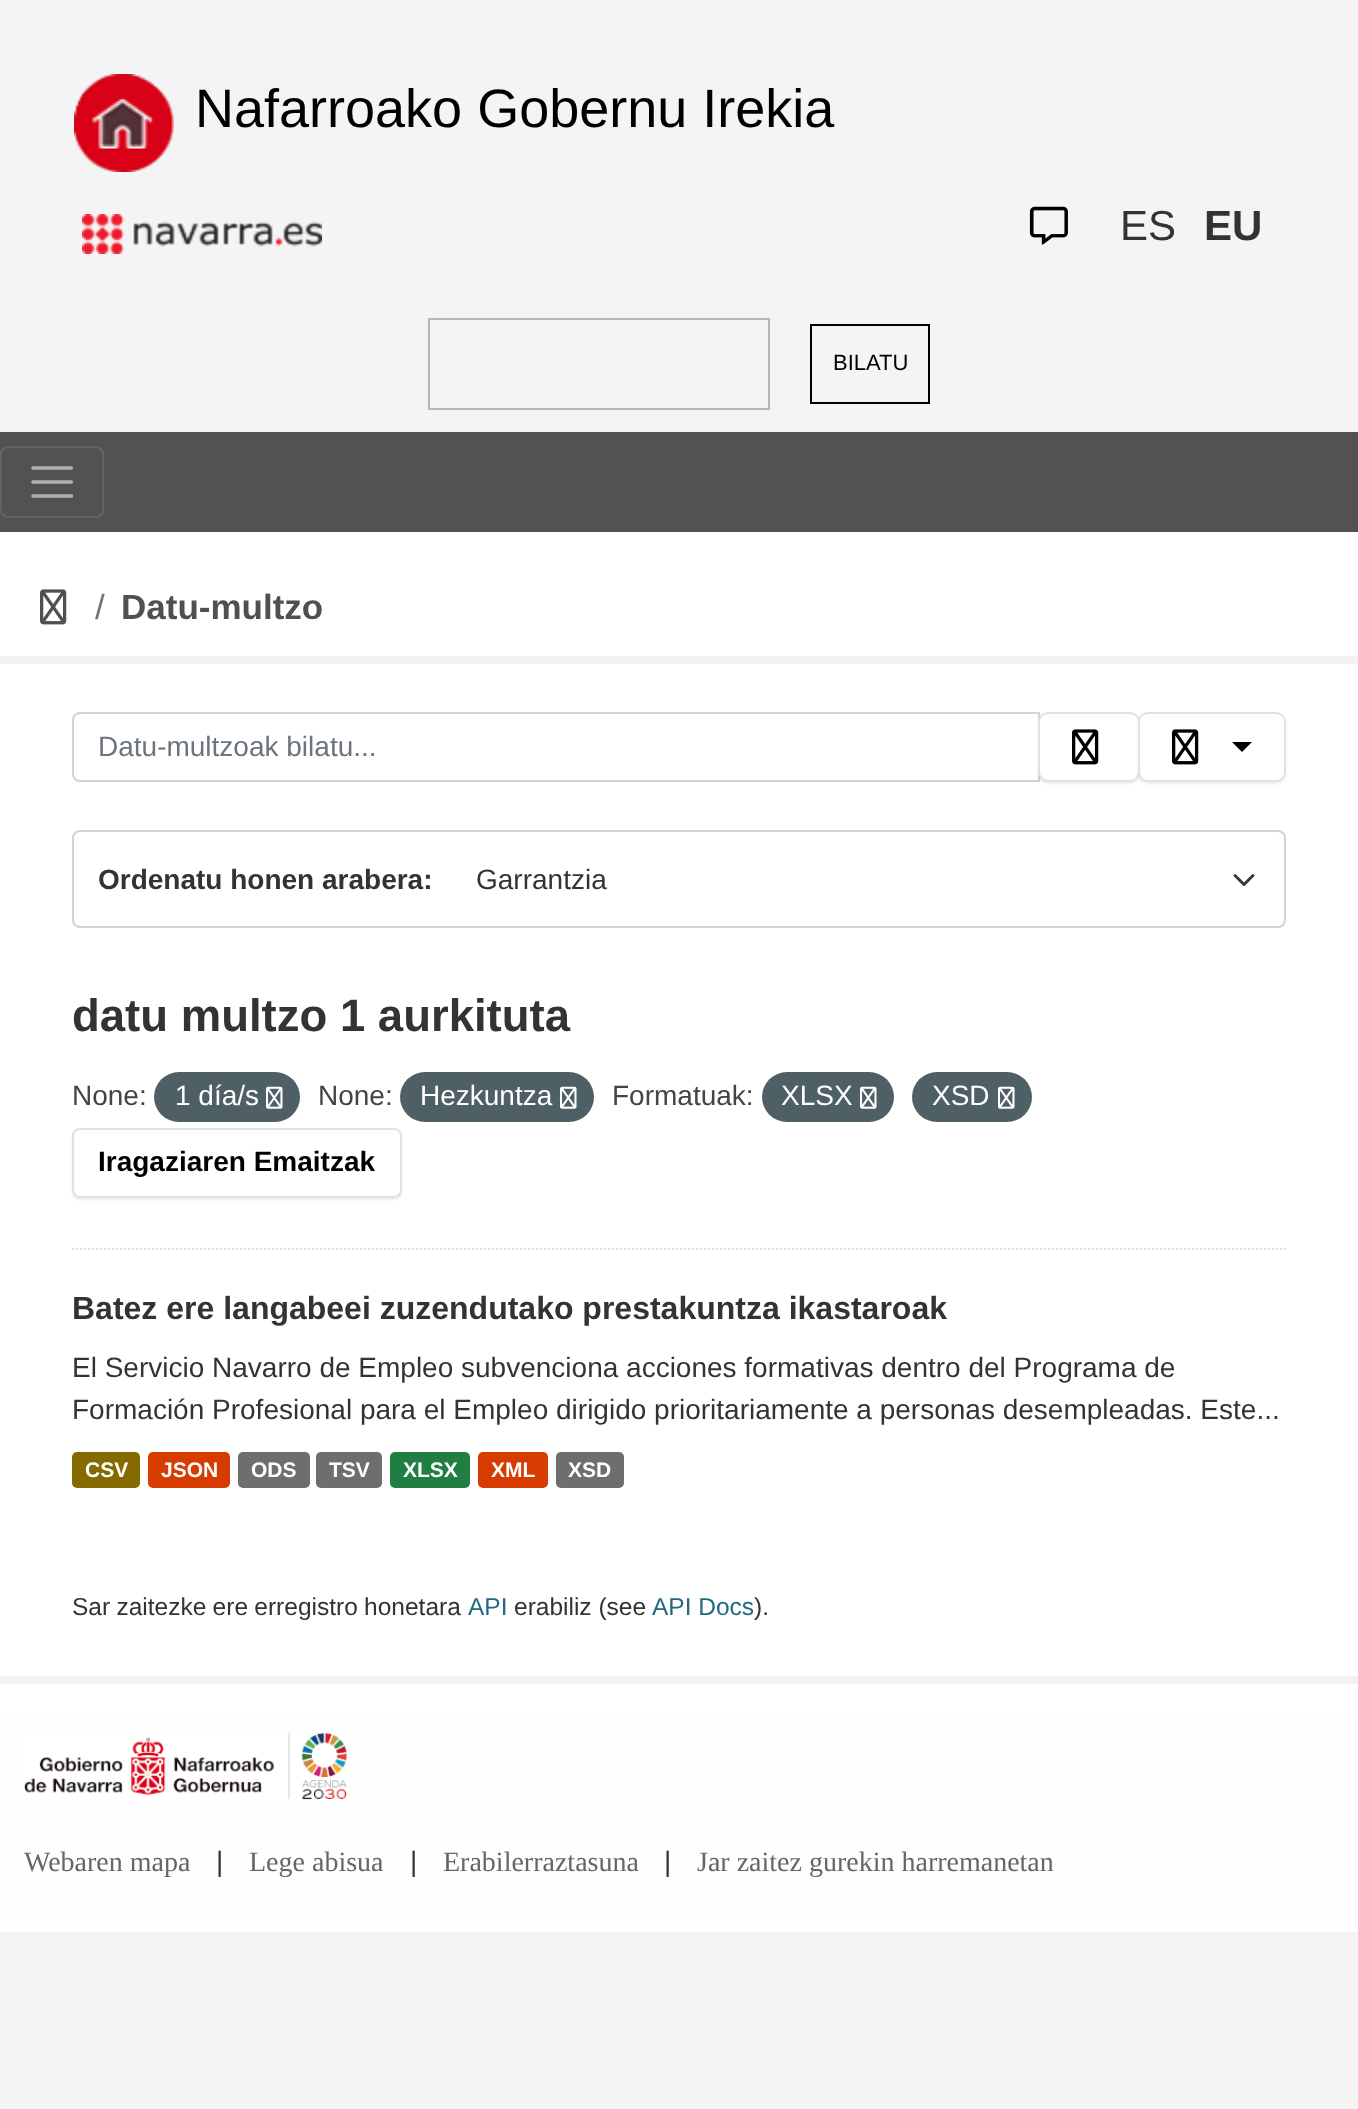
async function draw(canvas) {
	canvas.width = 1358;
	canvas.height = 2109;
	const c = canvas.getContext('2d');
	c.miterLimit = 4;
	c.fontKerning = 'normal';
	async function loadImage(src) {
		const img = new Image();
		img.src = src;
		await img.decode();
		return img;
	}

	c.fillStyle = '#f4f4f4';
	c.fillRect(0, 0, 1358, 2109);
	c.drawImage(await loadImage('img1.png'), 74, 74, 100, 98);
	c.font = '54px Liberation Sans';
	c.fillStyle = '#000';
	c.fillText('Nafarroako Gobernu Irekia', 195, 127);
	c.drawImage(await loadImage('img2.png'), 82, 214, 240, 40);
	c.drawImage(await loadImage('img3.png'), 1029, 206, 39, 39);
	c.font = '42px Liberation Sans';
	c.fillStyle = '#333';
	c.fillText('ES', 1120, 240);
	c.font = 'bold 42px Liberation Sans';
	c.fillText('EU', 1204, 240);
	c.strokeStyle = '#b6b6b6';
	c.lineWidth = 2;
	c.strokeRect(429, 319, 340, 90);
	c.strokeStyle = '#000';
	c.strokeRect(811, 325, 118, 78);
	c.font = '22px Liberation Sans';
	c.fillStyle = '#000';
	c.fillText('BILATU', 833, 370);
	c.fillStyle = '#525252';
	c.fillRect(0, 432, 1358, 100);
	c.beginPath();
	c.roundRect(1, 447, 102, 70, 7);
	c.strokeStyle = '#636363';
	c.stroke();
	c.beginPath();
	c.moveTo(33, 468);
	c.lineTo(71.5, 468);
	c.moveTo(33, 482);
	c.lineTo(71.5, 482);
	c.moveTo(33, 496);
	c.lineTo(71.5, 496);
	c.strokeStyle = '#b1b1b1';
	c.lineWidth = 3.5;
	c.lineCap = 'round';
	c.stroke();
	c.fillStyle = '#fff';
	c.fillRect(0, 532, 1358, 1184);
	c.drawImage(await loadImage('img4.png'), 40, 589, 27, 36);
	c.font = '35px Liberation Sans';
	c.fillStyle = '#6c757d';
	c.fillText('/', 95, 619);
	c.font = 'bold 35px Liberation Sans';
	c.fillStyle = '#505050';
	c.fillText('Datu-multzo', 121, 619);
	c.strokeStyle = '#f2f2f2';
	c.lineWidth = 8;
	c.strokeRect(-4, 660, 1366, 1020);
	c.beginPath();
	c.moveTo(72, 1249);
	c.lineTo(1286, 1249);
	c.strokeStyle = '#ddd';
	c.lineWidth = 2;
	c.lineCap = 'butt';
	c.setLineDash([2, 2]);
	c.stroke();
	c.beginPath();
	c.roundRect(73, 713, 966, 68, [7, 0, 0, 7]);
	c.strokeStyle = '#ced4da';
	c.setLineDash([]);
	c.stroke();
	c.font = '28px Liberation Sans';
	c.fillStyle = '#6c757d';
	c.fillText('Datu-multzoak bilatu...', 98, 756);
	c.fillStyle = '#00000012';
	c.filter = 'blur(1px)';
	c.beginPath();
	c.roundRect(1038, 714, 102, 70, 10);
	c.fill();
	c.filter = 'none';
	c.fillStyle = '#fff';
	c.beginPath();
	c.roundRect(1039, 713, 100, 68, 9);
	c.fill();
	c.strokeStyle = '#dee2e6';
	c.stroke();
	c.drawImage(await loadImage('img5.png'), 1072, 729, 27, 36);
	c.fillStyle = '#00000012';
	c.filter = 'blur(1px)';
	c.beginPath();
	c.roundRect(1138, 714, 148, 70, 10);
	c.fill();
	c.filter = 'none';
	c.fillStyle = '#fff';
	c.beginPath();
	c.roundRect(1139, 713, 146, 68, 9);
	c.fill();
	c.stroke();
	c.drawImage(await loadImage('img5.png'), 1172, 729, 27, 36);
	c.fillStyle = '#000';
	c.beginPath();
	c.moveTo(1232, 742);
	c.lineTo(1252, 742);
	c.lineTo(1242, 752);
	c.closePath();
	c.fill();
	c.beginPath();
	c.moveTo(1235, 875.5);
	c.lineTo(1244, 884.5);
	c.lineTo(1253, 875.5);
	c.strokeStyle = '#343a40';
	c.lineWidth = 3;
	c.lineCap = 'round';
	c.lineJoin = 'round';
	c.stroke();
	c.beginPath();
	c.roundRect(73, 831, 1212, 96, 7);
	c.strokeStyle = '#ced4da';
	c.lineWidth = 2;
	c.lineJoin = 'miter';
	c.stroke();
	c.font = 'bold 28px Liberation Sans';
	c.fillStyle = '#333';
	c.fillText('Ordenatu honen arabera:', 98, 889);
	c.font = '28px Liberation Sans';
	c.fillText('Garrantzia', 476, 889);
	c.font = 'bold 45.5px Liberation Sans';
	c.fillText('datu multzo 1 aurkituta', 72, 1031);
	c.font = '28px Liberation Sans';
	c.fillStyle = '#444';
	c.fillText('None:', 72, 1105);
	c.fillStyle = '#4e5f65';
	c.beginPath();
	c.roundRect(154, 1072, 146, 50, 25);
	c.fill();
	c.fillStyle = '#fff';
	c.fillText('1 día/s', 175, 1105);
	c.drawImage(await loadImage('img6.png'), 266, 1086, 17, 23);
	c.fillStyle = '#444';
	c.fillText('None:', 318, 1105);
	c.fillStyle = '#4e5f65';
	c.beginPath();
	c.roundRect(400, 1072, 194, 50, 25);
	c.fill();
	c.fillStyle = '#fff';
	c.fillText('Hezkuntza', 420, 1105);
	c.drawImage(await loadImage('img6.png'), 560, 1086, 17, 23);
	c.fillStyle = '#444';
	c.fillText('Formatuak:', 612, 1105);
	c.fillStyle = '#4e5f65';
	c.beginPath();
	c.roundRect(762, 1072, 132, 50, 25);
	c.fill();
	c.fillStyle = '#fff';
	c.fillText('XLSX', 781, 1105);
	c.drawImage(await loadImage('img6.png'), 860, 1086, 17, 23);
	c.fillStyle = '#4e5f65';
	c.beginPath();
	c.roundRect(912, 1072, 120, 50, 25);
	c.fill();
	c.fillStyle = '#fff';
	c.fillText('XSD', 932, 1105);
	c.drawImage(await loadImage('img6.png'), 998, 1086, 17, 23);
	c.fillStyle = '#00000012';
	c.filter = 'blur(1px)';
	c.beginPath();
	c.roundRect(72, 1130, 330, 70, 8);
	c.fill();
	c.filter = 'none';
	c.fillStyle = '#fff';
	c.beginPath();
	c.roundRect(73, 1129, 328, 68, 7);
	c.fill();
	c.strokeStyle = '#dee2e6';
	c.stroke();
	c.font = 'bold 28px Liberation Sans';
	c.fillStyle = '#000';
	c.fillText('Iragaziaren Emaitzak', 98, 1171);
	c.font = 'bold 32px Liberation Sans';
	c.fillStyle = '#333';
	c.fillText('Batez ere langabeei zuzendutako prestakuntza ikastaroak', 72, 1319);
	c.font = '28px Liberation Sans';
	c.fillText('El Servicio Navarro de Empleo subvenciona acciones formativas dentro del Programa de', 72, 1377);
	c.fillText('Formación Profesional para el Empleo dirigido prioritariamente a personas desempleadas. Este...', 72, 1419);
	c.fillStyle = '#856a00';
	c.beginPath();
	c.roundRect(72, 1452, 68, 36, 5);
	c.fill();
	c.font = 'bold 21px Liberation Sans';
	c.fillStyle = '#fff';
	c.fillText('CSV', 85, 1477);
	c.fillStyle = '#d63b00';
	c.beginPath();
	c.roundRect(148, 1452, 82, 36, 5);
	c.fill();
	c.fillStyle = '#fff';
	c.fillText('JSON', 161, 1477);
	c.fillStyle = '#6e6e6e';
	c.beginPath();
	c.roundRect(238, 1452, 72, 36, 5);
	c.fill();
	c.fillStyle = '#fff';
	c.fillText('ODS', 251, 1477);
	c.fillStyle = '#6e6e6e';
	c.beginPath();
	c.roundRect(316, 1452, 66, 36, 5);
	c.fill();
	c.fillStyle = '#fff';
	c.fillText('TSV', 329, 1477);
	c.fillStyle = '#207e42';
	c.beginPath();
	c.roundRect(390, 1452, 80, 36, 5);
	c.fill();
	c.fillStyle = '#fff';
	c.fillText('XLSX', 403, 1477);
	c.fillStyle = '#d63b00';
	c.beginPath();
	c.roundRect(478, 1452, 70, 36, 5);
	c.fill();
	c.fillStyle = '#fff';
	c.fillText('XML', 491, 1477);
	c.fillStyle = '#6e6e6e';
	c.beginPath();
	c.roundRect(556, 1452, 68, 36, 5);
	c.fill();
	c.fillStyle = '#fff';
	c.fillText('XSD', 568, 1477);
	c.wordSpacing = '-0.5px';
	c.font = '24.5px Liberation Sans';
	c.fillStyle = '#333';
	c.fillText('Sar zaitezke ere erregistro honetara', 72, 1615);
	c.wordSpacing = '0px';
	c.fillStyle = '#206b82';
	c.fillText('API', 468, 1615);
	c.fillStyle = '#333';
	c.fillText('erabiliz (see', 514, 1615);
	c.fillStyle = '#206b82';
	c.fillText('API Docs', 652, 1615);
	c.fillStyle = '#333';
	c.fillText(').', 754, 1615);
	c.fillStyle = '#fefefe';
	c.fillRect(0, 1716, 1358, 216);
	c.drawImage(await loadImage('img7.png'), 24, 1732, 323, 68);
	c.font = '28px Liberation Serif';
	c.fillStyle = '#666';
	c.fillText('Webaren mapa', 24, 1871);
	c.font = '28px Liberation Sans';
	c.fillStyle = '#333';
	c.fillText('|', 216, 1871);
	c.font = '28px Liberation Serif';
	c.fillStyle = '#666';
	c.fillText('Lege abisua', 249, 1871);
	c.font = '28px Liberation Sans';
	c.fillStyle = '#333';
	c.fillText('|', 410, 1871);
	c.font = '28px Liberation Serif';
	c.fillStyle = '#666';
	c.fillText('Erabilerraztasuna', 443, 1871);
	c.font = '28px Liberation Sans';
	c.fillStyle = '#333';
	c.fillText('|', 664, 1871);
	c.font = '28px Liberation Serif';
	c.fillStyle = '#666';
	c.fillText('Jar zaitez gurekin harremanetan', 697, 1871);
}

draw(document.querySelector('canvas'));
